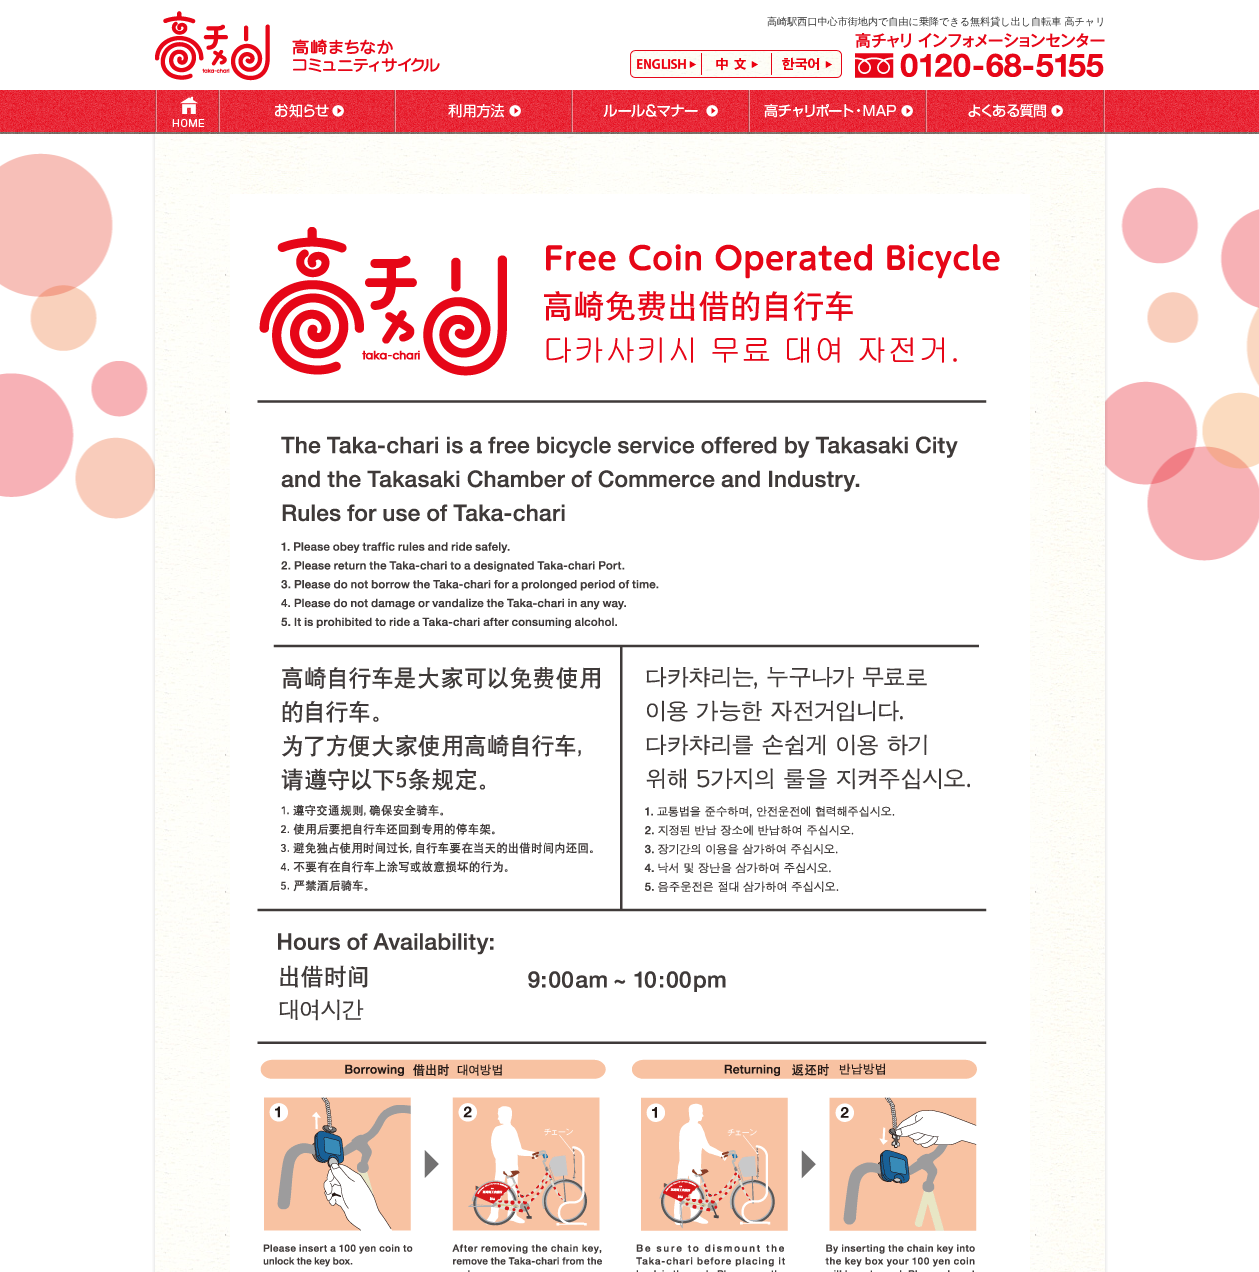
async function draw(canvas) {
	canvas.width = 1259;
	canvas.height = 1272;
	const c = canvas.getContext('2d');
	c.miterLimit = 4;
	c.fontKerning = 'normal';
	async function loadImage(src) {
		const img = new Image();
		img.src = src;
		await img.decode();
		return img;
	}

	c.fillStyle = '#fff';
	c.fillRect(0, 0, 1259, 1272);
	c.drawImage(await loadImage('img1.png'), 155, 11, 285, 70);
	c.font = '500 10.1px WenQuanYi Zen Hei';
	c.fillStyle = '#333';
	c.fillText('高崎駅西口中心市街地内で自由に乗降できる無料貸し出し自転車 高チャリ', 767, 25);
	c.drawImage(await loadImage('img2.png'), 630, 50, 71, 28);
	c.drawImage(await loadImage('img3.png'), 701, 50, 70, 28);
	c.drawImage(await loadImage('img4.png'), 771, 50, 71, 28);
	c.drawImage(await loadImage('img5.png'), 855, 33, 250, 45);
	c.drawImage(await loadImage('img6.png'), 0, 90, 1259, 44);
	c.drawImage(await loadImage('img7.png'), 155, 90, 65, 44);
	c.drawImage(await loadImage('img8.png'), 220, 90, 176, 44);
	c.drawImage(await loadImage('img9.png'), 396, 90, 177, 44);
	c.drawImage(await loadImage('img10.png'), 573, 90, 177, 44);
	c.drawImage(await loadImage('img11.png'), 750, 90, 177, 44);
	c.drawImage(await loadImage('img12.png'), 927, 90, 178, 44);
	c.drawImage(await loadImage('img13.png'), 0, 153, 1259, 408);
	c.drawImage(await loadImage('img14.png'), 152, 134, 956, 1138);
	c.drawImage(await loadImage('img15.png'), 230, 194, 800, 453);
	c.drawImage(await loadImage('img16.png'), 230, 647, 392, 264);
	c.drawImage(await loadImage('img17.png'), 622, 647, 408, 264);
	c.drawImage(await loadImage('img18.png'), 230, 911, 800, 361);
}

draw(document.querySelector('canvas'));
